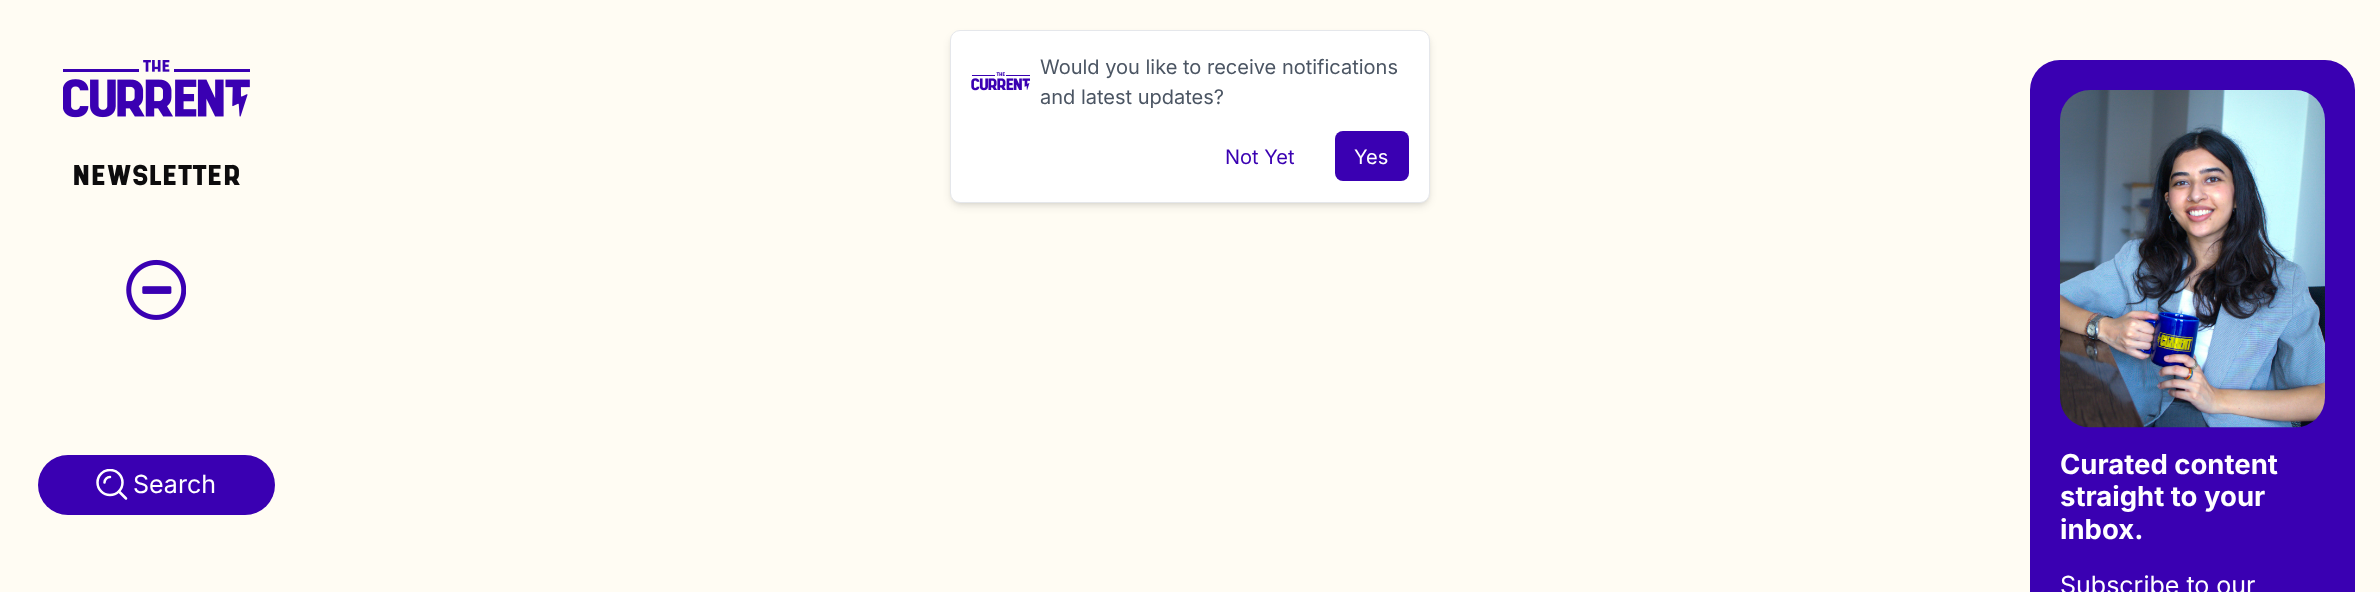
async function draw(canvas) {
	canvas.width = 2380;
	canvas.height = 592;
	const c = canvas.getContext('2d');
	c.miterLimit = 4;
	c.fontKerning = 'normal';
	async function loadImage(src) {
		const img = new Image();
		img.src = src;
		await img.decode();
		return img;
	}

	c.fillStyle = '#fffcf3';
	c.fillRect(0, 0, 2380, 592);
	c.fillStyle = '#0000001a';
	c.filter = 'blur(2.5px)';
	c.beginPath();
	c.roundRect(953, 35, 475, 168, 8);
	c.fill();
	c.filter = 'none';
	c.filter = 'blur(4px)';
	c.beginPath();
	c.roundRect(951, 36, 478, 170, 9);
	c.fill();
	c.filter = 'none';
	c.fillStyle = '#fff';
	c.beginPath();
	c.roundRect(950.5, 30.5, 479, 172, 9.5);
	c.fill();
	c.strokeStyle = '#e5e7eb';
	c.stroke();
	c.drawImage(await loadImage('img1.png'), 971, 72, 59, 19);
	c.font = '20px Inter';
	c.fillStyle = '#4b5563';
	c.fillText('Would you like to receive notifications', 1040, 74);
	c.fillText('and latest updates?', 1040, 104);
	c.fillStyle = '#3a00b2';
	c.fillText('Not Yet', 1225, 164);
	c.beginPath();
	c.roundRect(1335, 131, 74, 50, 8);
	c.fill();
	c.fillStyle = '#fff';
	c.fillText('Yes', 1354, 164);
	c.drawImage(await loadImage('img2.png'), 63, 60, 187, 58);
	c.font = '27.5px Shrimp';
	c.fillStyle = '#0d0c0d';
	c.fillText('NEWSLETTER', 72, 185);
	c.drawImage(await loadImage('img3.png'), 126, 259, 60, 61);
	c.fillStyle = '#3a00b2';
	c.beginPath();
	c.roundRect(38, 455, 237, 60, 30);
	c.fill();
	c.save();
	c.beginPath();
	c.rect(96, 469, 32, 31);
	c.clip();
	c.beginPath();
	c.arc(110, 482.5, 12.5, 0, 2 * Math.PI);
	c.strokeStyle = '#fff';
	c.lineWidth = 2.5;
	c.stroke();
	c.restore();
	c.beginPath();
	c.moveTo(110, 477);
	c.bezierCurveTo(107, 477, 104.5, 479.5, 104.5, 482.5);
	c.moveTo(126, 498.5);
	c.lineTo(119, 491.5);
	c.strokeStyle = '#fff';
	c.lineWidth = 2.5;
	c.lineCap = 'round';
	c.stroke();
	c.font = '25px Inter';
	c.fillStyle = '#fff';
	c.fillText('Search', 133, 493);
	c.fillStyle = '#3a00b2';
	c.beginPath();
	c.roundRect(2030, 60, 325, 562, 30);
	c.fill();
	c.drawImage(await loadImage('img4.png'), 2060, 90, 265, 338);
	c.font = 'bold 27.5px Inter';
	c.fillStyle = '#fff';
	for (const [text, x, y] of [
		['Curated content', 2060, 474],
		['straight to your', 2060, 506],
		['inbox.', 2060, 539],
	]) {
		c.fillText(text, x, y);
	}
	c.font = '25px Inter';
	c.fillText('Subscribe to our', 2060, 594);
}

draw(document.querySelector('canvas'));
